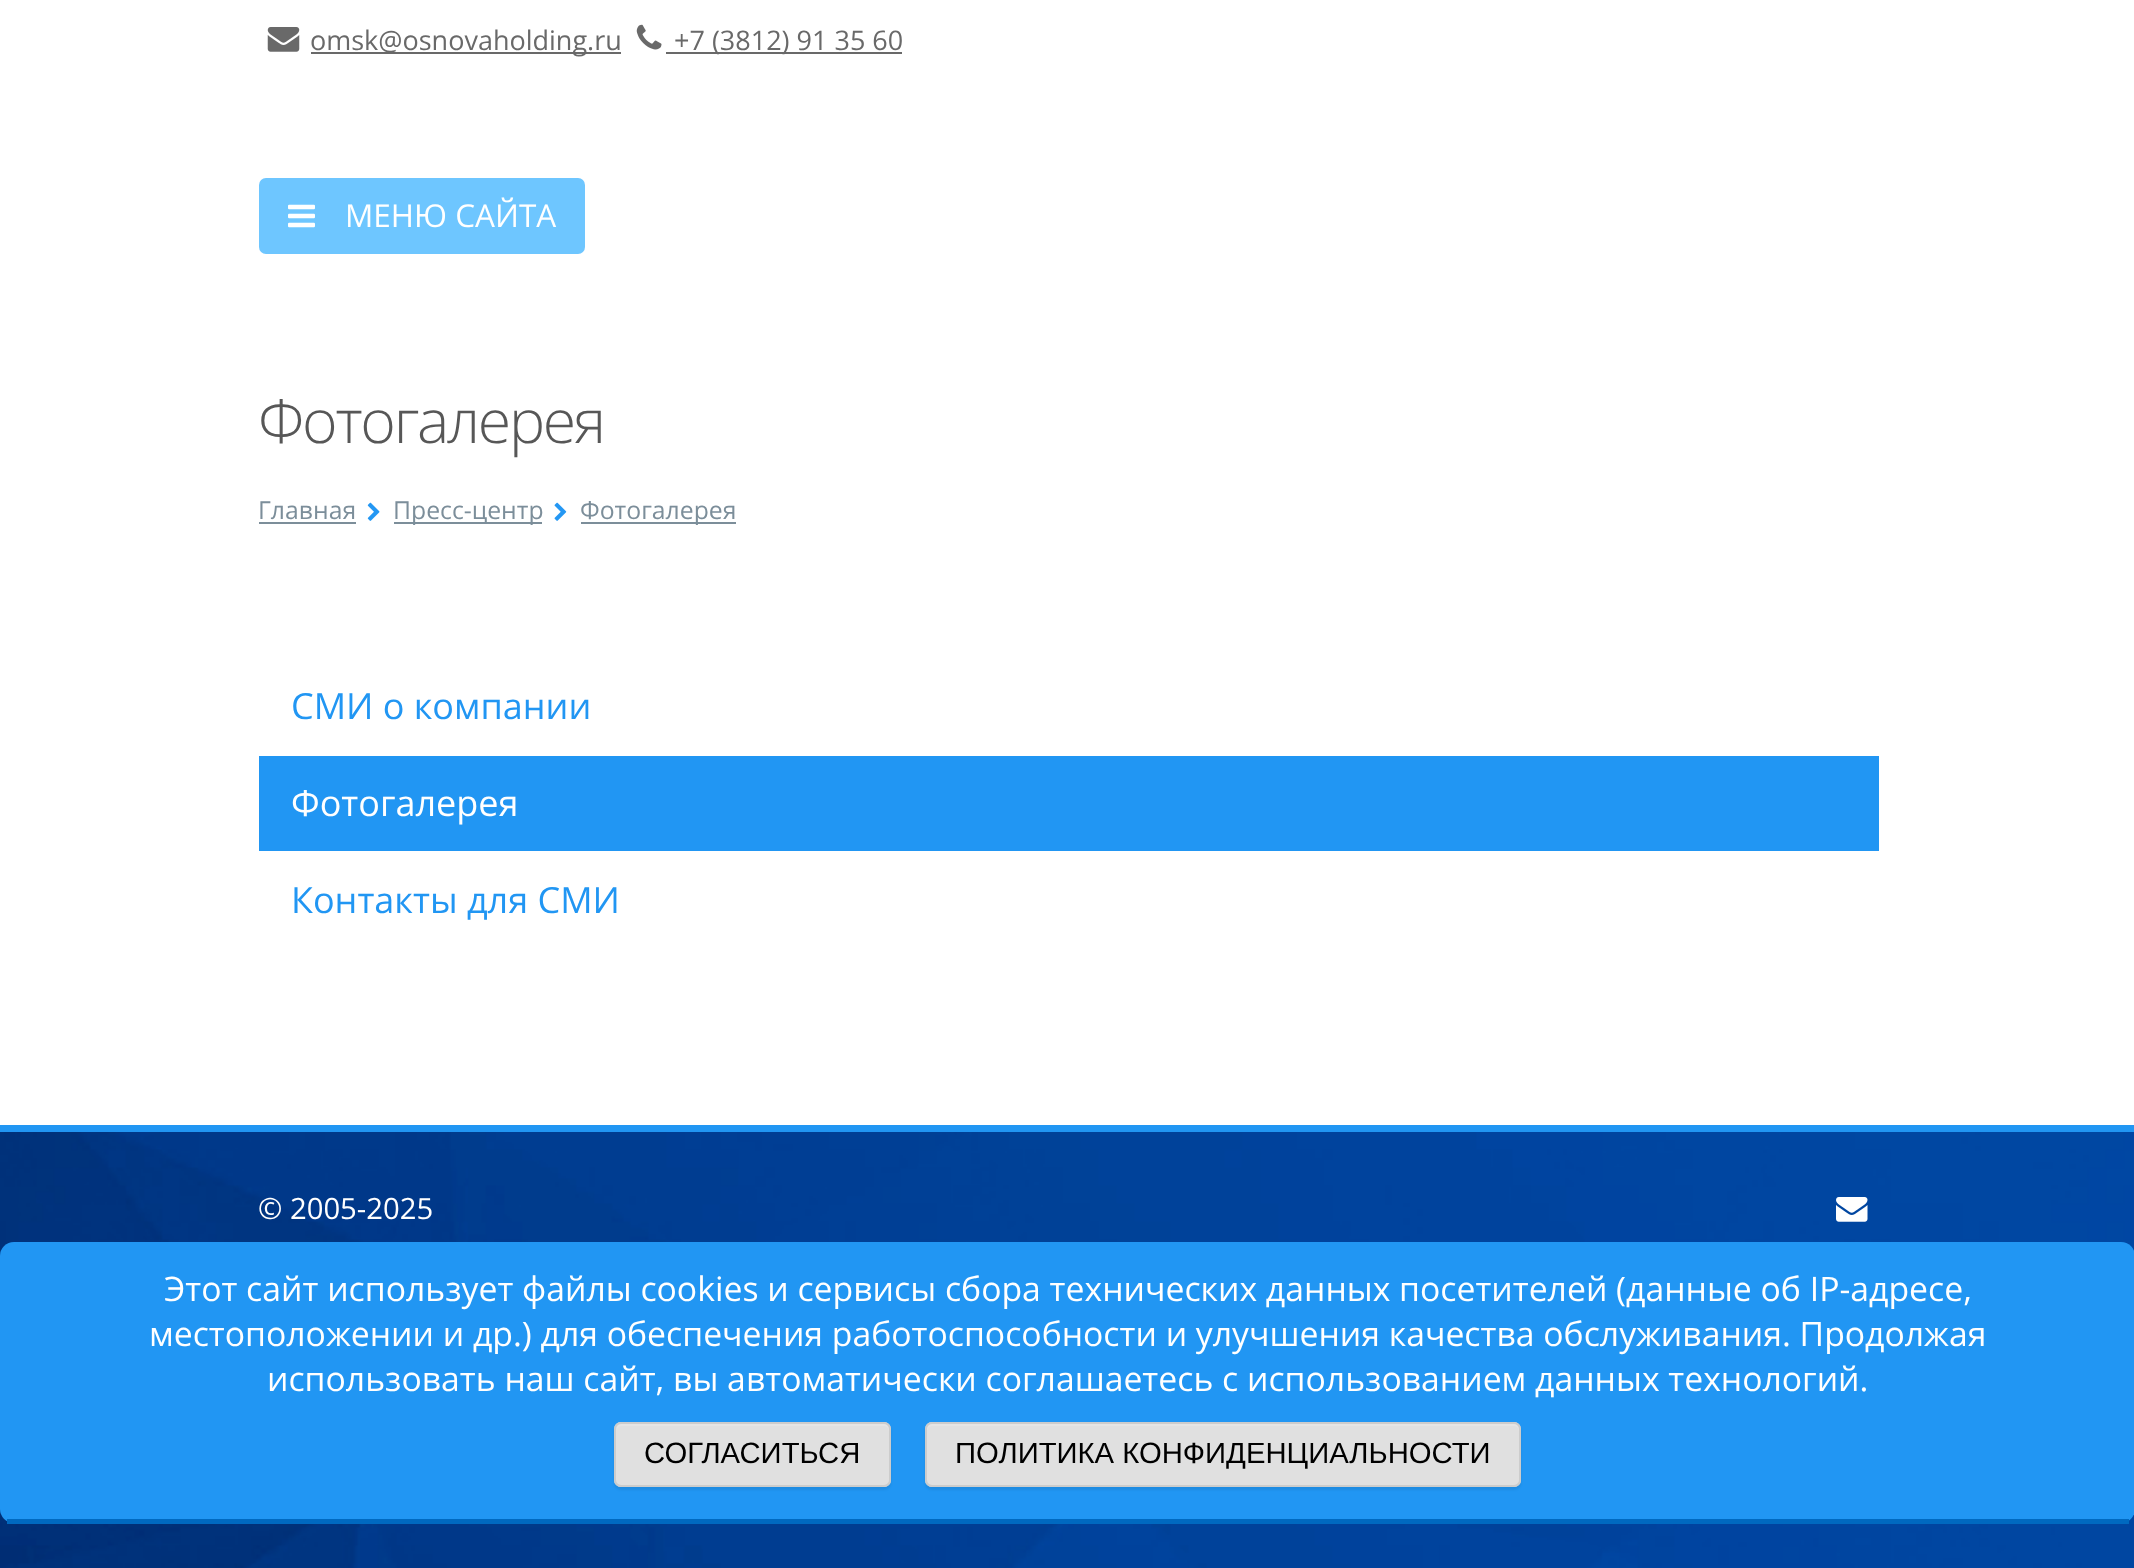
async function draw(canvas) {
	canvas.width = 2134;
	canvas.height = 1568;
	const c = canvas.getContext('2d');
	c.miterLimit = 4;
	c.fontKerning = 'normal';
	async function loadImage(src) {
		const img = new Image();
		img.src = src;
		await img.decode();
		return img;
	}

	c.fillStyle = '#fff';
	c.fillRect(0, 0, 2134, 1568);
	c.drawImage(await loadImage('img1.png'), 267, 27, 33, 25);
	c.fillStyle = '#696969';
	c.fillRect(311, 52, 310, 2);
	c.font = '27px Open Sans';
	c.fillText('omsk@osnovaholding.ru', 310, 50);
	c.drawImage(await loadImage('img2.png'), 636, 24, 26, 26);
	c.fillRect(666, 52, 236, 2);
	c.fillText('+7 (3812) 91 35 60', 674, 50);
	c.fillStyle = '#6ec6ff';
	c.beginPath();
	c.roundRect(259, 178, 326, 76, 7);
	c.fill();
	c.drawImage(await loadImage('img3.png'), 288, 204, 27, 24);
	c.font = '31.5px Open Sans';
	c.fillStyle = '#fff';
	c.fillText('МЕНЮ САЙТА', 345, 227);
	c.letterSpacing = '-2.25px';
	c.font = '300 60.75px Open Sans';
	c.fillStyle = '#575757';
	c.fillText('Фотогалерея', 258, 443);
	c.letterSpacing = '0px';
	c.font = '24.75px Open Sans';
	c.fillStyle = '#7c8e9a';
	c.fillText('Главная', 258, 519);
	c.fillRect(259, 522, 97, 2);
	c.drawImage(await loadImage('img4.png'), 367, 502, 13, 19);
	c.fillRect(394, 522, 148, 2);
	c.fillText('Пресс-центр', 393, 519);
	c.drawImage(await loadImage('img5.png'), 554, 502, 13, 19);
	c.fillRect(581, 522, 155, 2);
	c.fillText('Фотогалерея', 580, 519);
	c.font = '36px Open Sans';
	c.fillStyle = '#2196f3';
	c.fillText('СМИ о компании', 291, 719);
	c.fillRect(259, 756, 1620, 95);
	c.fillStyle = '#fff';
	c.fillText('Фотогалерея', 291, 816);
	c.fillStyle = '#2196f3';
	c.fillText('Контакты для СМИ', 291, 913);
	c.drawImage(await loadImage('img6.png'), 0, 1132, 2134, 436);
	c.fillRect(0, 1125, 2134, 7);
	c.font = '29.25px Open Sans';
	c.fillStyle = '#fff';
	c.fillText('© 2005-2025', 258, 1219);
	c.drawImage(await loadImage('img7.png'), 1836, 1197, 32, 25);
	c.fillStyle = '#2196f3';
	c.beginPath();
	c.roundRect(0, 1242, 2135, 281, 14);
	c.fill();
	c.fillStyle = '#0069c0';
	c.fillRect(7, 1519, 2122, 5);
	c.font = '33.75px Open Sans';
	c.fillStyle = '#fff';
	for (const [text, x, y] of [
		['Этот сайт использует файлы cookies и сервисы сбора технических данных посетителей (данные об IP-адресе,', 164, 1301],
		['местоположении и др.) для обеспечения работоспособности и улучшения качества обслуживания. Продолжая', 149, 1346],
		['использовать наш сайт, вы автоматически соглашаетесь с использованием данных технологий.', 267, 1391],
	]) {
		c.fillText(text, x, y);
	}
	c.fillStyle = '#00000012';
	c.filter = 'blur(1px)';
	c.beginPath();
	c.roundRect(614, 1424, 277, 66, 7);
	c.fill();
	c.filter = 'none';
	c.fillStyle = '#e0e0e0';
	c.beginPath();
	c.roundRect(614, 1422, 277, 65, 7);
	c.fill();
	c.fillStyle = '#e5e5e5';
	c.beginPath();
	c.moveTo(621, 1426);
	c.lineTo(884, 1426);
	c.bezierCurveTo(887, 1426, 889, 1429, 889, 1431);
	c.lineTo(889, 1429);
	c.bezierCurveTo(889, 1426, 887, 1424, 884, 1424);
	c.lineTo(622, 1424);
	c.bezierCurveTo(619, 1424, 617, 1426, 617, 1429);
	c.bezierCurveTo(618, 1427, 620, 1426, 621, 1426);
	c.closePath();
	c.fill();
	c.beginPath();
	c.roundRect(615, 1423, 275, 63, 6);
	c.strokeStyle = '#ccc';
	c.lineWidth = 2;
	c.stroke();
	c.font = '29.25px Liberation Sans';
	c.fillStyle = '#000';
	c.fillText('СОГЛАСИТЬСЯ', 644, 1463);
	c.fillStyle = '#00000012';
	c.filter = 'blur(1px)';
	c.beginPath();
	c.roundRect(925, 1424, 596, 66, 7);
	c.fill();
	c.filter = 'none';
	c.fillStyle = '#e0e0e0';
	c.beginPath();
	c.roundRect(925, 1422, 596, 65, 7);
	c.fill();
	c.fillStyle = '#e5e5e5';
	c.beginPath();
	c.moveTo(932, 1426);
	c.lineTo(1514, 1426);
	c.bezierCurveTo(1517, 1426, 1519, 1429, 1519, 1431);
	c.lineTo(1519, 1429);
	c.bezierCurveTo(1519, 1426, 1517, 1424, 1514, 1424);
	c.lineTo(932, 1424);
	c.bezierCurveTo(929, 1424, 927, 1426, 927, 1429);
	c.lineTo(927, 1431);
	c.bezierCurveTo(927, 1429, 929, 1426, 932, 1426);
	c.closePath();
	c.fill();
	c.beginPath();
	c.roundRect(926, 1423, 594, 63, 6);
	c.stroke();
	c.fillStyle = '#000';
	c.fillText('ПОЛИТИКА КОНФИДЕНЦИАЛЬНОСТИ', 955, 1463);
}

draw(document.querySelector('canvas'));
